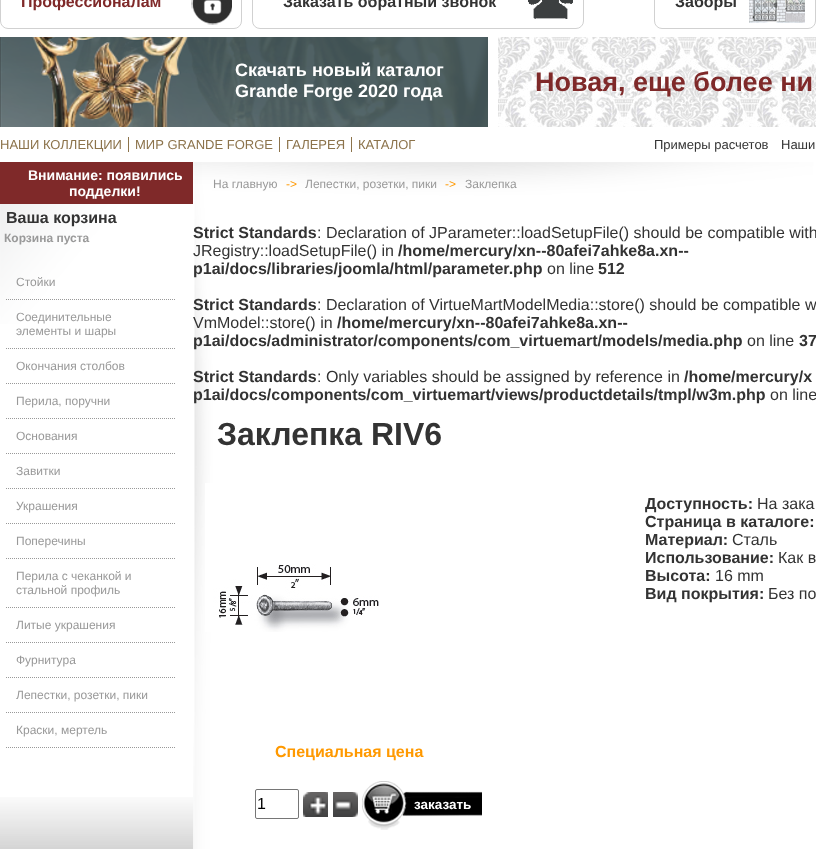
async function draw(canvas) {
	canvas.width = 816;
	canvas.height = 849;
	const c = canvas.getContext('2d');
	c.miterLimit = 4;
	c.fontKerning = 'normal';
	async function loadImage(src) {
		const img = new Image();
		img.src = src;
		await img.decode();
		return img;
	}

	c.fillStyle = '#fff';
	c.fillRect(0, 0, 816, 849);
	c.drawImage(await loadImage('img1.png'), 191, 0, 41, 25);
	c.beginPath();
	c.roundRect(0.5, -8.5, 241, 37, 7.5);
	c.strokeStyle = '#d1d1d1';
	c.stroke();
	c.font = 'bold 16px Liberation Sans';
	c.fillStyle = '#7f2929';
	c.fillText('Профессионалам', 21, 7);
	c.drawImage(await loadImage('img2.png'), 528, 0, 45, 19);
	c.beginPath();
	c.roundRect(252.5, -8.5, 331, 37, 7.5);
	c.stroke();
	c.fillStyle = '#333';
	c.fillText('Заказать обратный звонок', 283, 7);
	c.drawImage(await loadImage('img3.png'), 749, 0, 56, 23);
	c.beginPath();
	c.roundRect(654.5, -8.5, 161, 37, 7.5);
	c.stroke();
	c.fillText('Заборы', 675, 7);
	c.drawImage(await loadImage('img4.png'), 0, 37, 488, 90);
	c.font = 'bold 18px Liberation Sans';
	c.fillStyle = '#fff';
	c.fillText('Скачать новый каталог', 235, 76);
	c.fillText('Grande Forge 2020 года', 235, 97);
	c.drawImage(await loadImage('img5.png'), 498, 37, 318, 90);
	c.font = 'bold 27px Liberation Sans';
	c.fillStyle = '#7f2929';
	c.fillText('Новая, еще более ни', 535, 91);
	c.fillStyle = '#8c734b';
	c.fillRect(128, 137, 1, 15);
	c.font = '13px Liberation Sans';
	c.fillText('НАШИ КОЛЛЕКЦИИ', 0, 149);
	c.fillRect(279, 137, 1, 15);
	c.fillText('МИР GRANDE FORGE', 135, 149);
	c.fillRect(351, 137, 1, 15);
	c.fillText('ГАЛЕРЕЯ', 286, 149);
	c.fillText('КАТАЛОГ', 358, 149);
	c.fillStyle = '#333';
	c.fillText('Примеры расчетов', 654, 149);
	c.fillText('Наши', 781, 149);
	c.drawImage(await loadImage('img6.png'), 0, 797, 193, 52);
	c.drawImage(await loadImage('img7.png'), 0, 204, 193, 120);
	c.fillStyle = '#7f2929';
	c.fillRect(0, 162, 193, 42);
	c.font = 'bold 14px Liberation Sans';
	c.fillStyle = '#fff';
	c.fillText('Внимание: появились', 28, 180);
	c.fillText('подделки!', 69, 196);
	c.font = 'bold 16px Liberation Sans';
	c.fillStyle = '#333';
	c.fillText('Ваша корзина', 6, 223);
	c.font = 'bold 12px Liberation Sans';
	c.fillStyle = '#999';
	c.fillText('Корзина пуста', 4, 242);
	c.beginPath();
	c.moveTo(6, 299.5);
	c.lineTo(176, 299.5);
	c.strokeStyle = '#999';
	c.setLineDash([1, 1]);
	c.stroke();
	c.font = '12px Liberation Sans';
	c.fillText('Стойки', 16, 286);
	c.beginPath();
	c.moveTo(6, 348.5);
	c.lineTo(176, 348.5);
	c.stroke();
	c.fillText('Соединительные', 16, 321);
	c.fillText('элементы и шары', 16, 335);
	c.beginPath();
	c.moveTo(6, 383.5);
	c.lineTo(176, 383.5);
	c.stroke();
	c.fillText('Окончания столбов', 16, 370);
	c.beginPath();
	c.moveTo(6, 418.5);
	c.lineTo(176, 418.5);
	c.stroke();
	c.fillText('Перила, поручни', 16, 405);
	c.beginPath();
	c.moveTo(6, 453.5);
	c.lineTo(176, 453.5);
	c.stroke();
	c.fillText('Основания', 16, 440);
	c.beginPath();
	c.moveTo(6, 488.5);
	c.lineTo(176, 488.5);
	c.stroke();
	c.fillText('Завитки', 16, 475);
	c.beginPath();
	c.moveTo(6, 523.5);
	c.lineTo(176, 523.5);
	c.stroke();
	c.fillText('Украшения', 16, 510);
	c.beginPath();
	c.moveTo(6, 558.5);
	c.lineTo(176, 558.5);
	c.stroke();
	c.fillText('Поперечины', 16, 545);
	c.beginPath();
	c.moveTo(6, 607.5);
	c.lineTo(176, 607.5);
	c.stroke();
	c.fillText('Перила с чеканкой и', 16, 580);
	c.fillText('стальной профиль', 16, 594);
	c.beginPath();
	c.moveTo(6, 642.5);
	c.lineTo(176, 642.5);
	c.stroke();
	c.fillText('Литые украшения', 16, 629);
	c.beginPath();
	c.moveTo(6, 677.5);
	c.lineTo(176, 677.5);
	c.stroke();
	c.fillText('Фурнитура', 16, 664);
	c.beginPath();
	c.moveTo(6, 712.5);
	c.lineTo(176, 712.5);
	c.stroke();
	c.fillText('Лепестки, розетки, пики', 16, 699);
	c.beginPath();
	c.moveTo(6, 747.5);
	c.lineTo(176, 747.5);
	c.stroke();
	c.fillText('Краски, мертель', 16, 734);
	c.drawImage(await loadImage('img8.png'), 193, 162, 623, 687);
	c.fillText('На главную', 213, 188);
	c.fillStyle = '#f90';
	c.fillText('->', 286, 188);
	c.fillStyle = '#999';
	c.fillText('Лепестки, розетки, пики', 305, 188);
	c.fillStyle = '#f90';
	c.fillText('->', 445, 188);
	c.fillStyle = '#999';
	c.fillText('Заклепка', 465, 188);
	c.font = 'bold 16px Liberation Sans';
	c.fillStyle = '#333';
	c.fillText('Strict Standards', 193, 238);
	c.font = '16px Liberation Sans';
	c.fillText(': Declaration of JParameter::loadSetupFile() should be compatible with', 317, 238);
	c.fillText('JRegistry::loadSetupFile() in', 193, 256);
	c.font = 'bold 16px Liberation Sans';
	c.fillText('/home/mercury/xn--80afei7ahke8a.xn--', 398, 256);
	c.fillText('p1ai/docs/libraries/joomla/html/parameter.php', 193, 274);
	c.font = '16px Liberation Sans';
	c.fillText('on line', 547, 274);
	c.font = 'bold 16px Liberation Sans';
	c.fillText('512', 598, 274);
	c.fillText('Strict Standards', 193, 310);
	c.font = '16px Liberation Sans';
	c.fillText(': Declaration of VirtueMartModelMedia::store() should be compatible w', 317, 310);
	c.fillText('VmModel::store() in', 193, 328);
	c.font = 'bold 16px Liberation Sans';
	c.fillText('/home/mercury/xn--80afei7ahke8a.xn--', 337, 328);
	c.fillText('p1ai/docs/administrator/components/com_virtuemart/models/media.php', 193, 346);
	c.font = '16px Liberation Sans';
	c.fillText('on line', 747, 346);
	c.font = 'bold 16px Liberation Sans';
	c.fillText('37', 799, 346);
	c.fillText('Strict Standards', 193, 382);
	c.font = '16px Liberation Sans';
	c.fillText(': Only variables should be assigned by reference in', 317, 382);
	c.font = 'bold 16px Liberation Sans';
	c.fillText('/home/mercury/x', 684, 382);
	c.fillText('p1ai/docs/components/com_virtuemart/views/productdetails/tmpl/w3m.php', 193, 400);
	c.font = '16px Liberation Sans';
	c.fillText('on line', 770, 400);
	c.font = 'bold 32px Liberation Sans';
	c.fillText('Заклепка RIV6', 217, 445);
	c.drawImage(await loadImage('img9.png'), 205, 483, 174, 149);
	c.font = 'bold 16px Liberation Sans';
	c.fillText('Доступность:', 645, 509);
	c.font = '16px Liberation Sans';
	c.fillText('На зака', 757, 509);
	c.font = 'bold 16px Liberation Sans';
	c.fillText('Страница в каталоге:', 645, 527);
	c.fillText('Материал:', 645, 545);
	c.font = '16px Liberation Sans';
	c.fillText('Сталь', 732, 545);
	c.font = 'bold 16px Liberation Sans';
	c.fillText('Использование:', 645, 563);
	c.font = '16px Liberation Sans';
	c.fillText('Как в', 778, 563);
	c.font = 'bold 16px Liberation Sans';
	c.fillText('Высота:', 645, 581);
	c.font = '16px Liberation Sans';
	c.fillText('16 mm', 715, 581);
	c.font = 'bold 16px Liberation Sans';
	c.fillText('Вид покрытия:', 645, 599);
	c.font = '16px Liberation Sans';
	c.fillText('Без по', 768, 599);
	c.font = 'bold 16px Liberation Sans';
	c.fillStyle = '#f90';
	c.fillText('Специальная цена', 275, 757);
	c.beginPath();
	c.roundRect(255.5, 789.5, 43, 29, 1.5);
	c.strokeStyle = '#767676';
	c.setLineDash([]);
	c.stroke();
	c.font = '16px Liberation Sans';
	c.fillStyle = '#000';
	c.fillText('1', 257, 809);
	c.drawImage(await loadImage('img10.png'), 303, 792, 25, 25);
	c.drawImage(await loadImage('img11.png'), 333, 792, 25, 25);
	c.drawImage(await loadImage('img12.png'), 362, 781, 120, 49);
	c.font = 'bold 13.5px Liberation Sans';
	c.fillStyle = '#fff';
	c.fillText('заказать', 414, 809);
}

draw(document.querySelector('canvas'));
